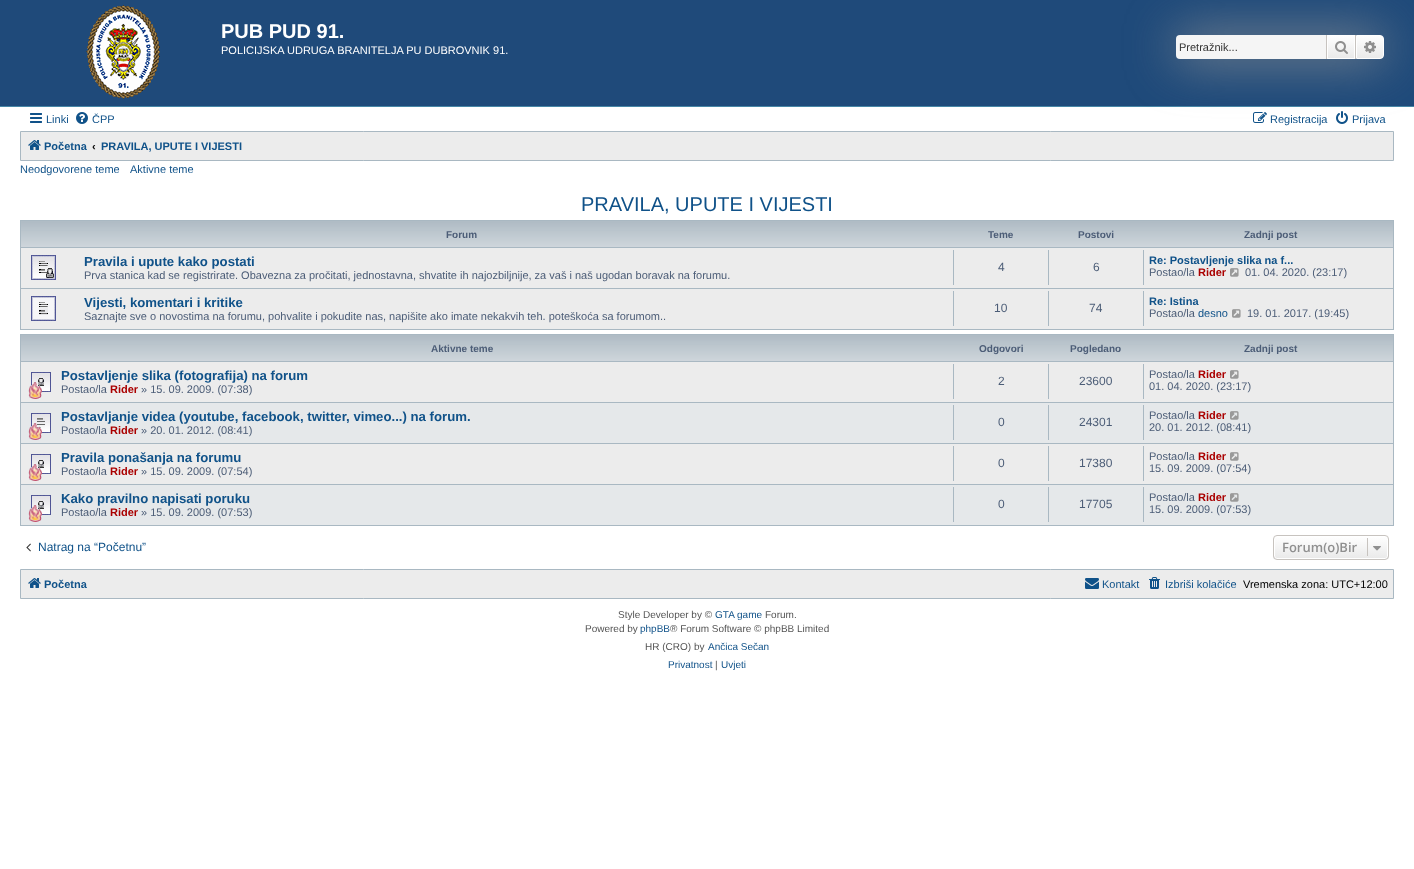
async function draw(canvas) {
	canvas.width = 1414;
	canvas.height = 869;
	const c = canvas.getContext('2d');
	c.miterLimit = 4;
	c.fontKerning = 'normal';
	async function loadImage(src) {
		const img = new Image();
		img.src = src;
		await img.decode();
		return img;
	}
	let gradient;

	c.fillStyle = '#fff';
	c.fillRect(0, 0, 1414, 869);
	c.fillStyle = '#1f4a7a';
	c.fillRect(0, 0, 1414, 106);
	c.fillStyle = '#4787a7';
	c.fillRect(0, 106, 1414, 1);
	c.drawImage(await loadImage('img1.png'), 86, 5, 74, 94);
	c.font = 'bold 20px Liberation Sans';
	c.fillStyle = '#fff';
	c.fillText('PUB PUD 91.', 221, 38);
	c.font = '11px Liberation Sans';
	c.fillText('POLICIJSKA UDRUGA BRANITELJA PU DUBROVNIK 91.', 221, 54);
	c.fillStyle = '#ececec';
	c.beginPath();
	c.rect(20.5, 131.5, 1373, 29);
	c.fill();
	c.strokeStyle = '#a9b8c2';
	c.stroke();
	c.fillStyle = '#999';
	c.filter = 'blur(25px)';
	c.beginPath();
	c.roundRect(1176, 35, 208, 24, 4);
	c.fill();
	c.filter = 'none';
	c.fillStyle = '#f5f5f5';
	c.beginPath();
	c.roundRect(1176, 35, 150, 24, [4, 0, 0, 4]);
	c.fill();
	c.fillStyle = '#333';
	c.fillText('Pretražnik...', 1179, 51);
	gradient = c.createLinearGradient(1341, 35, 1341, 59);
	gradient.addColorStop(0, '#fff');
	gradient.addColorStop(1, '#e9e9e9');
	c.fillStyle = gradient;
	c.fillRect(1328, 36, 26, 22);
	c.strokeStyle = '#fff';
	c.strokeRect(1327.5, 35.5, 27, 23);
	c.fillStyle = '#c7c3bf';
	c.fillRect(1355, 35, 1, 24);
	c.fillRect(1326, 35, 1, 24);
	c.drawImage(await loadImage('img2.png'), 1335, 41, 13, 13);
	gradient = c.createLinearGradient(1370, 35, 1370, 59);
	gradient.addColorStop(0, '#fff');
	gradient.addColorStop(1, '#e9e9e9');
	c.fillStyle = gradient;
	c.beginPath();
	c.roundRect(1356.5, 35.5, 27, 23, [0, 3.5, 3.5, 0]);
	c.fill();
	c.stroke();
	c.drawImage(await loadImage('img3.png'), 1364, 41, 12, 12);
	c.drawImage(await loadImage('img4.png'), 30, 113, 12, 10);
	c.fillStyle = '#105289';
	c.fillText('Linki', 46, 123);
	c.drawImage(await loadImage('img5.png'), 76, 112, 12, 12);
	c.fillText('ČPP', 92, 123);
	c.drawImage(await loadImage('img6.png'), 1253, 112, 14, 11);
	c.fillText('Registracija', 1270, 123);
	c.drawImage(await loadImage('img7.png'), 1336, 111, 12, 13);
	c.fillText('Prijava', 1352, 123);
	c.drawImage(await loadImage('img8.png'), 28, 140, 13, 10);
	c.font = 'bold 11px Liberation Sans';
	c.fillText('Početna', 44, 150);
	c.fillStyle = '#000';
	c.fillText('‹', 92, 150);
	c.fillStyle = '#105289';
	c.fillText('PRAVILA, UPUTE I VIJESTI', 101, 150);
	c.font = '11px Liberation Sans';
	c.fillText('Neodgovorene teme', 20, 173);
	c.fillText('Aktivne teme', 130, 173);
	c.font = '20px Liberation Sans';
	c.fillText('PRAVILA, UPUTE I VIJESTI', 581, 211);
	c.drawImage(await loadImage('img9.png'), 21, 221, 1372, 26);
	c.strokeStyle = '#a9b8c2';
	c.strokeRect(20.5, 220.5, 1373, 109);
	c.font = 'bold 10px Liberation Sans';
	c.fillStyle = '#4c5d77';
	for (const [text, x, y] of [
		['Forum', 446, 238],
		['Teme', 988, 238],
		['Postovi', 1078, 238],
		['Zadnji post', 1244, 238],
	]) {
		c.fillText(text, x, y);
	}
	c.fillStyle = '#ececec';
	c.fillRect(21, 248, 1372, 81);
	c.fillStyle = '#a9b8c2';
	c.fillRect(21, 247, 1372, 1);
	c.drawImage(await loadImage('img10.png'), 31, 255, 25, 25);
	c.font = 'bold 13.2px Liberation Sans';
	c.fillStyle = '#105289';
	c.fillText('Pravila i upute kako postati', 84, 266);
	c.font = '11px Liberation Sans';
	c.fillStyle = '#4c5d77';
	c.fillText('Prva stanica kad se registrirate. Obavezna za pročitati, jednostavna, shvatite ih najozbiljnije, za vaš i naš ugodan boravak na forumu.', 84, 279);
	c.fillStyle = '#a9b8c2';
	c.fillRect(953, 250, 1, 35);
	c.font = '12px Liberation Sans';
	c.fillStyle = '#4c5d77';
	c.fillText('4', 998, 271);
	c.fillStyle = '#a9b8c2';
	c.fillRect(1048, 250, 1, 35);
	c.fillStyle = '#4c5d77';
	c.fillText('6', 1093, 271);
	c.fillStyle = '#a9b8c2';
	c.fillRect(1143, 250, 1, 35);
	c.font = 'bold 11px Liberation Sans';
	c.fillStyle = '#105289';
	c.fillText('Re: Postavljenje slika na f...', 1149, 264);
	c.font = '11px Liberation Sans';
	c.fillStyle = '#4c5d77';
	c.fillText('Postao/la', 1149, 276);
	c.font = 'bold 11px Liberation Sans';
	c.fillStyle = '#a00';
	c.fillText('Rider', 1198, 276);
	c.drawImage(await loadImage('img11.png'), 1230, 268, 9, 9);
	c.font = '11px Liberation Sans';
	c.fillStyle = '#4c5d77';
	c.fillText('01. 04. 2020. (23:17)', 1245, 276);
	c.fillStyle = '#a9b8c2';
	c.fillRect(21, 288, 1372, 1);
	c.drawImage(await loadImage('img12.png'), 31, 296, 25, 25);
	c.font = 'bold 13.2px Liberation Sans';
	c.fillStyle = '#105289';
	c.fillText('Vijesti, komentari i kritike', 84, 307);
	c.font = '11px Liberation Sans';
	c.fillStyle = '#4c5d77';
	c.fillText('Saznajte sve o novostima na forumu, pohvalite i pokudite nas, napišite ako imate nekakvih teh. poteškoća sa forumom..', 84, 320);
	c.fillStyle = '#a9b8c2';
	c.fillRect(953, 291, 1, 35);
	c.font = '12px Liberation Sans';
	c.fillStyle = '#4c5d77';
	c.fillText('10', 994, 312);
	c.fillStyle = '#a9b8c2';
	c.fillRect(1048, 291, 1, 35);
	c.fillStyle = '#4c5d77';
	c.fillText('74', 1089, 312);
	c.fillStyle = '#a9b8c2';
	c.fillRect(1143, 291, 1, 35);
	c.font = 'bold 11px Liberation Sans';
	c.fillStyle = '#105289';
	c.fillText('Re: Istina', 1149, 305);
	c.font = '11px Liberation Sans';
	c.fillStyle = '#4c5d77';
	c.fillText('Postao/la', 1149, 317);
	c.fillStyle = '#105289';
	c.fillText('desno', 1198, 317);
	c.drawImage(await loadImage('img11.png'), 1232, 309, 9, 9);
	c.fillStyle = '#4c5d77';
	c.fillText('19. 01. 2017. (19:45)', 1247, 317);
	c.fillStyle = '#ececec';
	c.fillRect(21, 444, 1372, 40);
	c.drawImage(await loadImage('img9.png'), 21, 335, 1372, 26);
	c.strokeRect(20.5, 334.5, 1373, 191);
	c.font = 'bold 10px Liberation Sans';
	c.fillStyle = '#4c5d77';
	for (const [text, x, y] of [
		['Aktivne teme', 431, 352],
		['Odgovori', 979, 352],
		['Pogledano', 1070, 352],
		['Zadnji post', 1244, 352],
	]) {
		c.fillText(text, x, y);
	}
	c.fillStyle = '#ececec';
	c.fillRect(21, 362, 1372, 40);
	c.fillStyle = '#a9b8c2';
	c.fillRect(21, 361, 1372, 1);
	c.drawImage(await loadImage('img13.png'), 31, 372, 20, 20);
	c.drawImage(await loadImage('img14.png'), 28, 382, 14, 17);
	c.font = 'bold 13.2px Liberation Sans';
	c.fillStyle = '#105289';
	c.fillText('Postavljenje slika (fotografija) na forum', 61, 380);
	c.font = '11px Liberation Sans';
	c.fillStyle = '#4c5d77';
	c.fillText('Postao/la', 61, 393);
	c.font = 'bold 11px Liberation Sans';
	c.fillStyle = '#a00';
	c.fillText('Rider', 110, 393);
	c.font = '11px Liberation Sans';
	c.fillStyle = '#4c5d77';
	c.fillText('» 15. 09. 2009. (07:38)', 141, 393);
	c.fillStyle = '#a9b8c2';
	c.fillRect(953, 364, 1, 35);
	c.font = '12px Liberation Sans';
	c.fillStyle = '#4c5d77';
	c.fillText('2', 998, 385);
	c.fillStyle = '#a9b8c2';
	c.fillRect(1048, 364, 1, 35);
	c.fillStyle = '#4c5d77';
	c.fillText('23600', 1079, 385);
	c.fillStyle = '#a9b8c2';
	c.fillRect(1143, 364, 1, 35);
	c.font = '11px Liberation Sans';
	c.fillStyle = '#4c5d77';
	c.fillText('Postao/la', 1149, 378);
	c.font = 'bold 11px Liberation Sans';
	c.fillStyle = '#a00';
	c.fillText('Rider', 1198, 378);
	c.drawImage(await loadImage('img11.png'), 1230, 370, 9, 9);
	c.font = '11px Liberation Sans';
	c.fillStyle = '#4c5d77';
	c.fillText('01. 04. 2020. (23:17)', 1149, 390);
	c.fillStyle = '#e5e8ea';
	c.fillRect(21, 403, 1372, 40);
	c.fillStyle = '#a9b8c2';
	c.fillRect(21, 402, 1372, 1);
	c.drawImage(await loadImage('img15.png'), 31, 413, 20, 20);
	c.drawImage(await loadImage('img16.png'), 28, 423, 14, 17);
	c.font = 'bold 13.2px Liberation Sans';
	c.fillStyle = '#105289';
	c.fillText('Postavljanje videa (youtube, facebook, twitter, vimeo...) na forum.', 61, 421);
	c.font = '11px Liberation Sans';
	c.fillStyle = '#4c5d77';
	c.fillText('Postao/la', 61, 434);
	c.font = 'bold 11px Liberation Sans';
	c.fillStyle = '#a00';
	c.fillText('Rider', 110, 434);
	c.font = '11px Liberation Sans';
	c.fillStyle = '#4c5d77';
	c.fillText('» 20. 01. 2012. (08:41)', 141, 434);
	c.fillStyle = '#a9b8c2';
	c.fillRect(953, 405, 1, 35);
	c.font = '12px Liberation Sans';
	c.fillStyle = '#4c5d77';
	c.fillText('0', 998, 426);
	c.fillStyle = '#a9b8c2';
	c.fillRect(1048, 405, 1, 35);
	c.fillStyle = '#4c5d77';
	c.fillText('24301', 1079, 426);
	c.fillStyle = '#a9b8c2';
	c.fillRect(1143, 405, 1, 35);
	c.font = '11px Liberation Sans';
	c.fillStyle = '#4c5d77';
	c.fillText('Postao/la', 1149, 419);
	c.font = 'bold 11px Liberation Sans';
	c.fillStyle = '#a00';
	c.fillText('Rider', 1198, 419);
	c.drawImage(await loadImage('img17.png'), 1230, 411, 9, 9);
	c.font = '11px Liberation Sans';
	c.fillStyle = '#4c5d77';
	c.fillText('20. 01. 2012. (08:41)', 1149, 431);
	c.fillStyle = '#a9b8c2';
	c.fillRect(21, 443, 1372, 1);
	c.drawImage(await loadImage('img13.png'), 31, 454, 20, 20);
	c.drawImage(await loadImage('img14.png'), 28, 464, 14, 17);
	c.font = 'bold 13.2px Liberation Sans';
	c.fillStyle = '#105289';
	c.fillText('Pravila ponašanja na forumu', 61, 462);
	c.font = '11px Liberation Sans';
	c.fillStyle = '#4c5d77';
	c.fillText('Postao/la', 61, 475);
	c.font = 'bold 11px Liberation Sans';
	c.fillStyle = '#a00';
	c.fillText('Rider', 110, 475);
	c.font = '11px Liberation Sans';
	c.fillStyle = '#4c5d77';
	c.fillText('» 15. 09. 2009. (07:54)', 141, 475);
	c.fillStyle = '#a9b8c2';
	c.fillRect(953, 446, 1, 35);
	c.font = '12px Liberation Sans';
	c.fillStyle = '#4c5d77';
	c.fillText('0', 998, 467);
	c.fillStyle = '#a9b8c2';
	c.fillRect(1048, 446, 1, 35);
	c.fillStyle = '#4c5d77';
	c.fillText('17380', 1079, 467);
	c.fillStyle = '#a9b8c2';
	c.fillRect(1143, 446, 1, 35);
	c.font = '11px Liberation Sans';
	c.fillStyle = '#4c5d77';
	c.fillText('Postao/la', 1149, 460);
	c.font = 'bold 11px Liberation Sans';
	c.fillStyle = '#a00';
	c.fillText('Rider', 1198, 460);
	c.drawImage(await loadImage('img11.png'), 1230, 452, 9, 9);
	c.font = '11px Liberation Sans';
	c.fillStyle = '#4c5d77';
	c.fillText('15. 09. 2009. (07:54)', 1149, 472);
	c.fillStyle = '#e5e8ea';
	c.fillRect(21, 485, 1372, 40);
	c.fillStyle = '#a9b8c2';
	c.fillRect(21, 484, 1372, 1);
	c.drawImage(await loadImage('img13.png'), 31, 495, 20, 20);
	c.drawImage(await loadImage('img18.png'), 28, 505, 14, 17);
	c.font = 'bold 13.2px Liberation Sans';
	c.fillStyle = '#105289';
	c.fillText('Kako pravilno napisati poruku', 61, 503);
	c.font = '11px Liberation Sans';
	c.fillStyle = '#4c5d77';
	c.fillText('Postao/la', 61, 516);
	c.font = 'bold 11px Liberation Sans';
	c.fillStyle = '#a00';
	c.fillText('Rider', 110, 516);
	c.font = '11px Liberation Sans';
	c.fillStyle = '#4c5d77';
	c.fillText('» 15. 09. 2009. (07:53)', 141, 516);
	c.fillStyle = '#a9b8c2';
	c.fillRect(953, 487, 1, 35);
	c.font = '12px Liberation Sans';
	c.fillStyle = '#4c5d77';
	c.fillText('0', 998, 508);
	c.fillStyle = '#a9b8c2';
	c.fillRect(1048, 487, 1, 35);
	c.fillStyle = '#4c5d77';
	c.fillText('17705', 1079, 508);
	c.fillStyle = '#a9b8c2';
	c.fillRect(1143, 487, 1, 35);
	c.font = '11px Liberation Sans';
	c.fillStyle = '#4c5d77';
	c.fillText('Postao/la', 1149, 501);
	c.font = 'bold 11px Liberation Sans';
	c.fillStyle = '#a00';
	c.fillText('Rider', 1198, 501);
	c.drawImage(await loadImage('img17.png'), 1230, 493, 9, 9);
	c.font = '11px Liberation Sans';
	c.fillStyle = '#4c5d77';
	c.fillText('15. 09. 2009. (07:53)', 1149, 513);
	c.drawImage(await loadImage('img19.png'), 26, 543, 5, 9);
	c.font = '12px Liberation Sans';
	c.fillStyle = '#105289';
	c.fillText('Natrag na “Početnu”', 38, 551);
	c.save();
	c.beginPath();
	c.roundRect(1273, 535, 116, 25, 4);
	c.clip();
	gradient = c.createLinearGradient(1331, 536, 1331, 559);
	gradient.addColorStop(0, '#fff');
	gradient.addColorStop(1, '#e9e9e9');
	c.fillStyle = gradient;
	c.fillRect(1273, 536, 116, 23);
	c.restore();
	c.beginPath();
	c.roundRect(1274.5, 536.5, 113, 22, 2.5);
	c.strokeStyle = '#fff';
	c.stroke();
	c.beginPath();
	c.roundRect(1273.5, 535.5, 115, 24, 3.5);
	c.strokeStyle = '#c7c3bf';
	c.stroke();
	c.font = '600 13px Open Sans';
	c.fillStyle = '#8f8f8f';
	c.fillText('Forum(o)Bir', 1282, 552);
	c.fillStyle = '#c7c3bf';
	c.fillRect(1367, 538, 1, 18);
	c.drawImage(await loadImage('img20.png'), 1373, 546, 8, 5);
	c.fillStyle = '#ececec';
	c.beginPath();
	c.rect(20.5, 569.5, 1373, 29);
	c.fill();
	c.strokeStyle = '#a9b8c2';
	c.stroke();
	c.drawImage(await loadImage('img8.png'), 28, 578, 13, 10);
	c.font = 'bold 11px Liberation Sans';
	c.fillStyle = '#105289';
	c.fillText('Početna', 44, 588);
	c.drawImage(await loadImage('img21.png'), 1085, 578, 14, 11);
	c.font = '11px Liberation Sans';
	c.fillText('Kontakt', 1102, 588);
	c.drawImage(await loadImage('img22.png'), 1149, 577, 11, 12);
	c.fillText('Izbriši kolačiće', 1165, 588);
	c.fillStyle = '#000';
	c.fillText('Vremenska zona: UTC+12:00', 1243, 588);
	c.font = '10px Liberation Sans';
	c.fillStyle = '#555';
	c.fillText('Style Developer by ©', 618, 618);
	c.fillStyle = '#105289';
	c.fillText('GTA game', 715, 618);
	c.fillStyle = '#555';
	c.fillText('Forum.', 765, 618);
	c.fillText('Powered by', 585, 632);
	c.fillStyle = '#105289';
	c.fillText('phpBB', 640, 632);
	c.fillStyle = '#555';
	c.fillText('® Forum Software © phpBB Limited', 670, 632);
	c.fillText('HR (CRO) by', 645, 650);
	c.fillStyle = '#105289';
	c.fillText('Ančica Sečan', 708, 650);
	c.fillText('Privatnost', 668, 668);
	c.fillStyle = '#555';
	c.fillText('|', 715, 668);
	c.fillStyle = '#105289';
	c.fillText('Uvjeti', 721, 668);
}

draw(document.querySelector('canvas'));
